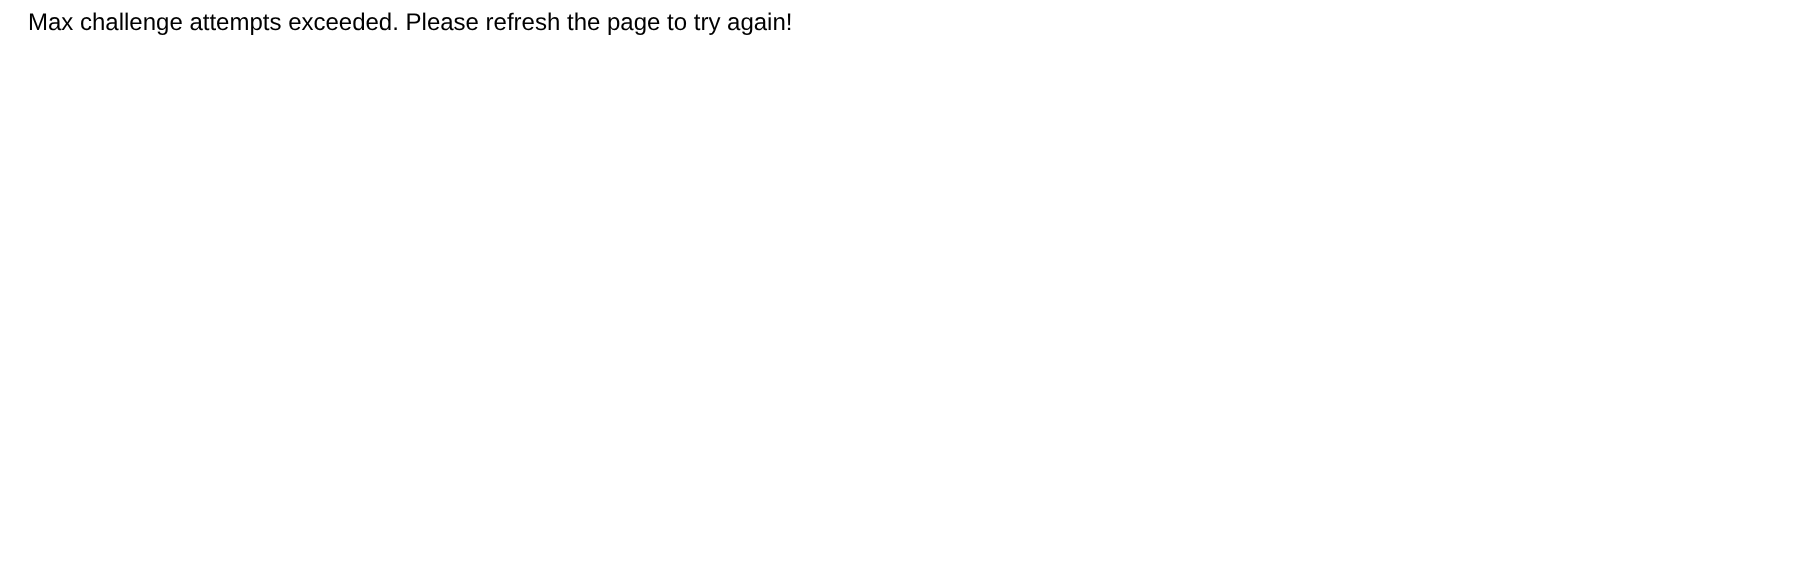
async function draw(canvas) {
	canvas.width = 1807;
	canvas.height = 571;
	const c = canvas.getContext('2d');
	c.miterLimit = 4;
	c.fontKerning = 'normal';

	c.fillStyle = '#fff';
	c.fillRect(0, 0, 1807, 571);
	c.font = '24px Liberation Sans';
	c.fillStyle = '#000';
	c.fillText('Max challenge attempts exceeded. Please refresh the page to try again!', 28, 30);
}

draw(document.querySelector('canvas'));
